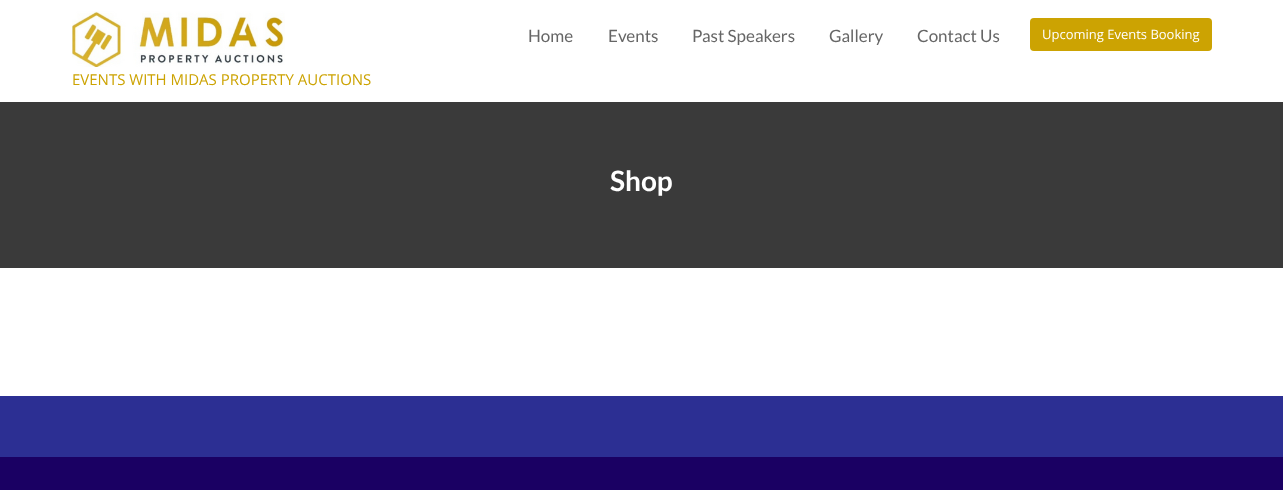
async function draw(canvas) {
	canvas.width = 1283;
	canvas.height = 490;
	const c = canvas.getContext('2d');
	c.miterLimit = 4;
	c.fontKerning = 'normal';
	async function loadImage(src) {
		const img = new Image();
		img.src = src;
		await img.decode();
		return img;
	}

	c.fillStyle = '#fff';
	c.fillRect(0, 0, 1283, 490);
	c.font = '17px Lato';
	c.fillStyle = '#666';
	for (const [text, x, y] of [
		['Home', 528, 42],
		['Events', 608, 42],
		['Past Speakers', 692, 42],
		['Gallery', 829, 42],
		['Contact Us', 917, 42],
	]) {
		c.fillText(text, x, y);
	}
	c.fillStyle = '#cca302';
	c.beginPath();
	c.roundRect(1030, 18, 182, 33, 4);
	c.fill();
	c.font = '13px Open Sans';
	c.fillStyle = '#fff';
	c.fillText('Upcoming Events Booking', 1042, 39);
	c.drawImage(await loadImage('img1.png'), 72, 11, 213, 56);
	c.font = '15px Open Sans';
	c.fillStyle = '#cca302';
	c.fillText('EVENTS WITH MIDAS PROPERTY AUCTIONS', 72, 85);
	c.fillStyle = '#3a3a3a';
	c.fillRect(0, 102, 1283, 166);
	c.font = 'bold 28px Lato';
	c.fillStyle = '#fff';
	c.fillText('Shop', 610, 191);
	c.fillStyle = '#2c2f93';
	c.fillRect(0, 396, 1283, 61);
	c.fillStyle = '#1a0063';
	c.fillRect(0, 457, 1283, 33);
}

draw(document.querySelector('canvas'));
